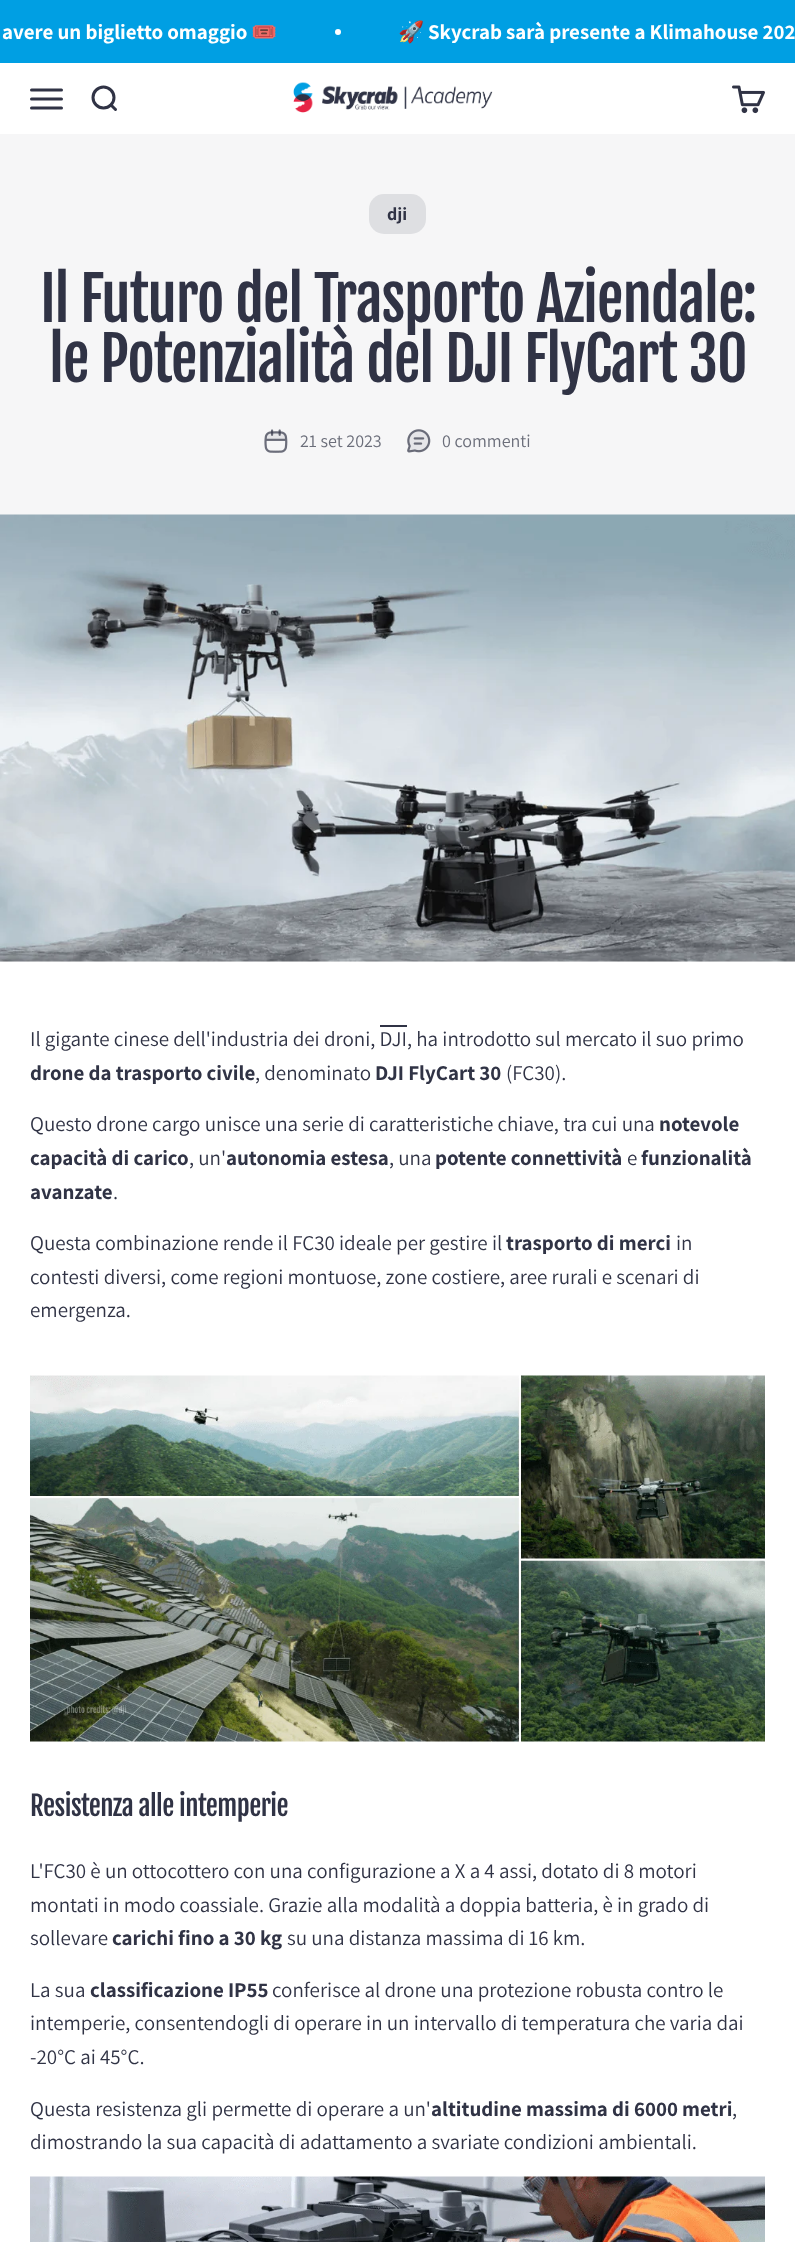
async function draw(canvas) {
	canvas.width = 795;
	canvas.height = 2242;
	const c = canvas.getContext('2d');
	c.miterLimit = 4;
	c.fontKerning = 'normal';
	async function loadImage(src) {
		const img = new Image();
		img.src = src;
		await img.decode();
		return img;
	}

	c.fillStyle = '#fff';
	c.fillRect(0, 0, 795, 2242);
	c.fillStyle = '#009fe3';
	c.fillRect(0, 0, 795, 63);
	c.font = 'bold 21px Assistant';
	c.fillStyle = '#fff';
	c.fillText('avere un biglietto omaggio', 2, 39);
	c.font = 'bold 21px Noto Color Emoji';
	c.fillText('🎟️', 251, 39);
	c.beginPath();
	c.arc(338, 32, 3, 0, 2 * Math.PI);
	c.fill();
	c.fillText('🚀', 398, 39);
	c.font = 'bold 21px Assistant';
	c.fillText('Skycrab sarà presente a Klimahouse 202', 428, 39);
	c.beginPath();
	c.moveTo(31.5, 90);
	c.lineTo(61.5, 90);
	c.moveTo(31.5, 99);
	c.lineTo(61.5, 99);
	c.moveTo(31.5, 108);
	c.lineTo(61.5, 108);
	c.strokeStyle = '#303345';
	c.lineWidth = 3;
	c.lineCap = 'round';
	c.stroke();
	c.beginPath();
	c.arc(103.5, 97.5, 10.5, 0, 2 * Math.PI);
	c.stroke();
	c.beginPath();
	c.moveTo(111, 105);
	c.lineTo(115.5, 109.5);
	c.lineJoin = 'round';
	c.stroke();
	c.drawImage(await loadImage('img1.png'), 293, 82, 200, 31);
	c.drawImage(await loadImage('img2.png'), 732, 85, 33, 29);
	c.fillStyle = '#f6f6f7';
	c.fillRect(0, 134, 795, 828);
	c.fillStyle = '#dedfe2';
	c.beginPath();
	c.roundRect(369, 194, 57, 40, 15);
	c.fill();
	c.font = 'bold 18px Assistant';
	c.fillStyle = '#303345';
	c.fillText('dji', 387, 220);
	c.letterSpacing = '-1.2px';
	c.font = '60px Fjalla One';
	c.fillText('Il Futuro del Trasporto Aziendale:', 40, 322);
	c.fillText('le Potenzialità del DJI FlyCart 30', 49, 382);
	c.drawImage(await loadImage('img3.png'), 264, 429, 24, 24);
	c.letterSpacing = '0px';
	c.font = '18px Assistant';
	c.fillStyle = '#6b6e7a';
	c.fillText('21 set 2023', 300, 447);
	c.drawImage(await loadImage('img4.png'), 407, 429, 24, 24);
	c.fillText('0 commenti', 442, 447);
	c.drawImage(await loadImage('img5.png'), 0, 514, 795, 448);
	c.font = '21px Assistant';
	c.fillStyle = '#303345';
	c.fillText('Il gigante cinese dell\'industria dei droni, DJI, ha introdotto sul mercato il suo primo', 30, 1046);
	c.fillRect(380, 1025, 27, 2);
	c.font = 'bold 21px Assistant';
	c.fillText('drone da trasporto civile', 30, 1080);
	c.font = '21px Assistant';
	c.fillText(', denominato', 255, 1080);
	c.font = 'bold 21px Assistant';
	c.fillText('DJI FlyCart 30', 375, 1080);
	c.font = '21px Assistant';
	c.fillText('(FC30).', 506, 1080);
	c.fillText('Questo drone cargo unisce una serie di caratteristiche chiave, tra cui una', 30, 1131);
	c.font = 'bold 21px Assistant';
	c.fillText('notevole', 659, 1131);
	c.fillText('capacità di carico', 30, 1165);
	c.font = '21px Assistant';
	c.fillText(', un\'', 189, 1165);
	c.font = 'bold 21px Assistant';
	c.fillText('autonomia estesa', 226, 1165);
	c.font = '21px Assistant';
	c.fillText(', una', 389, 1165);
	c.font = 'bold 21px Assistant';
	c.fillText('potente connettività', 435, 1165);
	c.font = '21px Assistant';
	c.fillText('e', 627, 1165);
	c.font = 'bold 21px Assistant';
	c.fillText('funzionalità', 641, 1165);
	c.fillText('avanzate', 30, 1199);
	c.font = '21px Assistant';
	c.fillText('.', 113, 1199);
	c.fillText('Questa combinazione rende il FC30 ideale per gestire il', 30, 1250);
	c.font = 'bold 21px Assistant';
	c.fillText('trasporto di merci', 506, 1250);
	c.font = '21px Assistant';
	for (const [text, x, y] of [
		['in', 676, 1250],
		['contesti diversi, come regioni montuose, zone costiere, aree rurali e scenari di', 30, 1284],
		['emergenza.', 30, 1317],
	]) {
		c.fillText(text, x, y);
	}
	c.drawImage(await loadImage('img6.png'), 30, 1375, 735, 367);
	c.letterSpacing = '-0.55px';
	c.font = '27px Fjalla One';
	c.fillText('Resistenza alle intemperie', 30, 1816);
	c.letterSpacing = '0px';
	c.font = '21px Assistant';
	for (const [text, x, y] of [
		['L\'FC30 è un ottocottero con una configurazione a X a 4 assi, dotato di 8 motori', 30, 1878],
		['montati in modo coassiale. Grazie alla modalità a doppia batteria, è in grado di', 30, 1912],
		['sollevare', 30, 1945],
	]) {
		c.fillText(text, x, y);
	}
	c.font = 'bold 21px Assistant';
	c.fillText('carichi fino a 30 kg', 112, 1945);
	c.font = '21px Assistant';
	c.fillText('su una distanza massima di 16 km.', 287, 1945);
	c.fillText('La sua', 30, 1997);
	c.font = 'bold 21px Assistant';
	c.fillText('classificazione IP55', 90, 1997);
	c.font = '21px Assistant';
	for (const [text, x, y] of [
		['conferisce al drone una protezione robusta contro le', 272, 1997],
		['intemperie, consentendogli di operare in un intervallo di temperatura che varia dai', 30, 2030],
		['-20°C ai 45°C.', 30, 2064],
		['Questa resistenza gli permette di operare a un\'', 30, 2116],
	]) {
		c.fillText(text, x, y);
	}
	c.font = 'bold 21px Assistant';
	c.fillText('altitudine massima di 6000 metri', 431, 2116);
	c.font = '21px Assistant';
	c.fillText(',', 732, 2116);
	c.fillText('dimostrando la sua capacità di adattamento a svariate condizioni ambientali.', 30, 2149);
	c.drawImage(await loadImage('img7.png'), 30, 2176, 735, 66);
}

draw(document.querySelector('canvas'));
